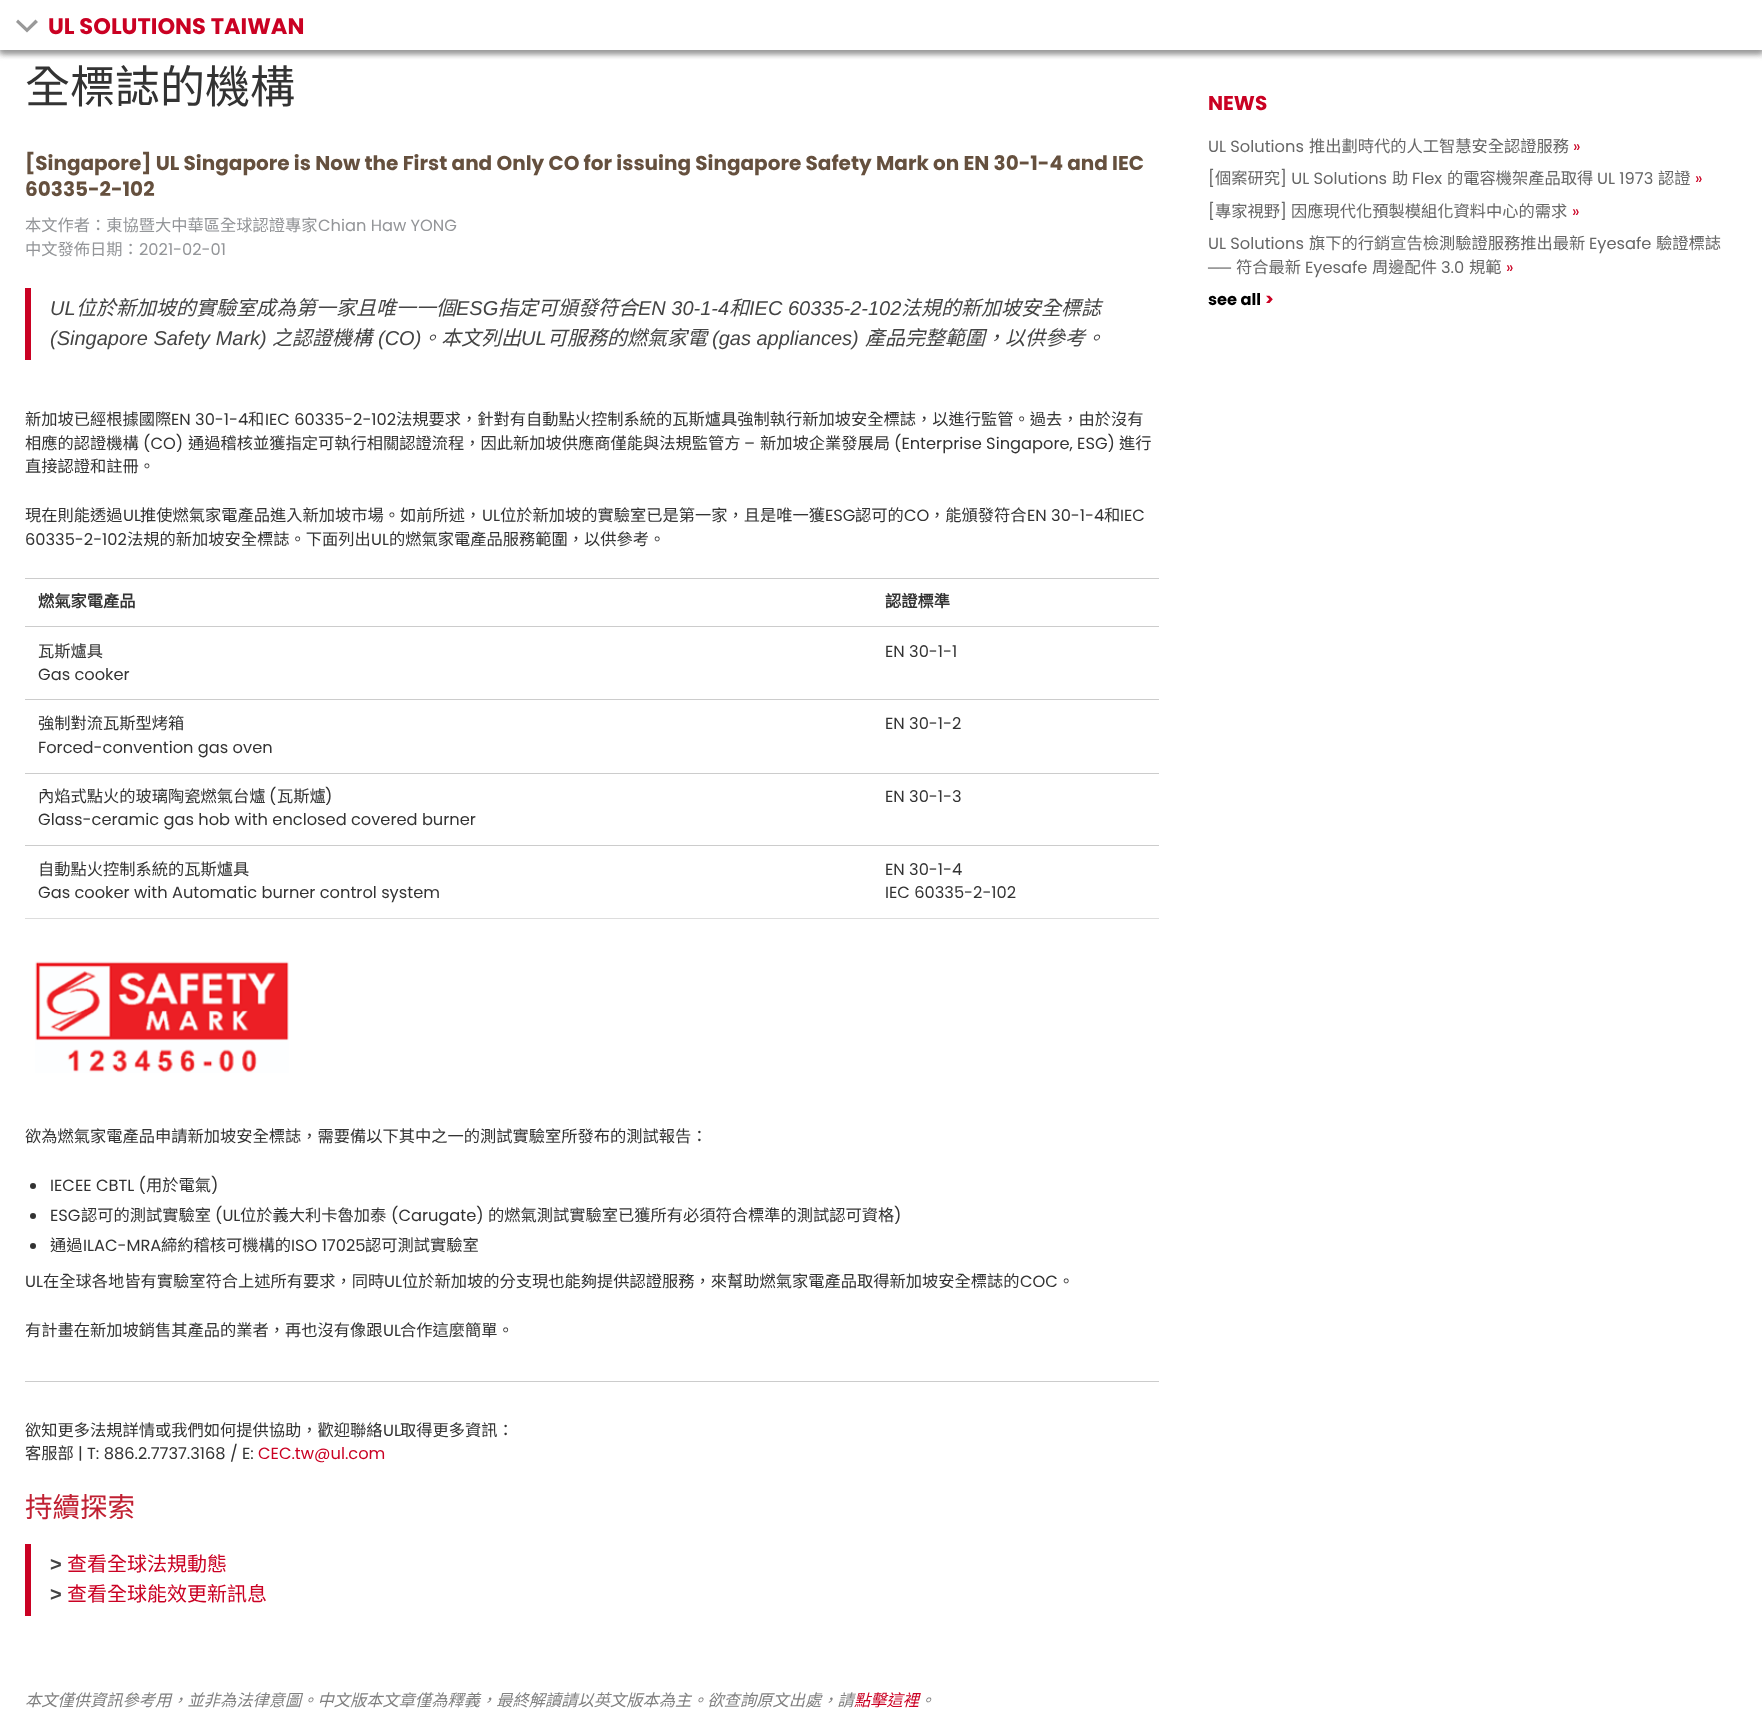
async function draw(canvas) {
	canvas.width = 1762;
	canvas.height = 1721;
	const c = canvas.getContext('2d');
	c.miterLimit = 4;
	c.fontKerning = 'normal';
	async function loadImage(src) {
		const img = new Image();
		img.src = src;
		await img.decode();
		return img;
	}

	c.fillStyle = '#fff';
	c.fillRect(0, 0, 1762, 1721);
	c.fillStyle = '#999';
	c.filter = 'blur(3px)';
	c.beginPath();
	c.rect(0, 3, 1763, 50);
	c.fill();
	c.filter = 'none';
	c.fillStyle = '#fff';
	c.fillRect(0, 0, 1762, 50);
	c.save();
	c.beginPath();
	c.rect(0, 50, 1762, 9);
	c.clip();
	c.fillStyle = '#999';
	c.filter = 'blur(3px)';
	c.beginPath();
	c.rect(0, 3, 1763, 50);
	c.fill();
	c.filter = 'none';
	c.restore();
	c.fillStyle = '#999';
	c.beginPath();
	c.moveTo(16, 22);
	c.lineTo(18, 19.5);
	c.lineTo(27, 28);
	c.lineTo(35.5, 19.5);
	c.lineTo(38, 22);
	c.lineTo(27, 32.5);
	c.closePath();
	c.fill();
	c.font = 'bold 22.5px Poppins';
	c.fillStyle = '#ca0123';
	c.fillText('UL SOLUTIONS TAIWAN', 48, 34);
	c.font = '45px Noto Sans CJK TC';
	c.fillStyle = '#333';
	c.fillText('全標誌的機構', 25, 103);
	c.font = 'bold 20px Poppins';
	c.fillStyle = '#65503e';
	c.fillText('[Singapore] UL Singapore is Now the First and Only CO for issuing Singapore Safety Mark on EN 30-1-4 and IEC', 25, 170);
	c.fillText('60335-2-102', 25, 196);
	c.font = '16.25px Noto Sans CJK TC';
	c.fillStyle = '#939598';
	c.fillText('本文作者：東協暨大中華區全球認證專家', 25, 231);
	c.font = '16.25px Poppins';
	c.fillText('Chian Haw YONG', 318, 231);
	c.font = '16.25px Noto Sans CJK TC';
	c.fillText('中文發佈日期：', 25, 255);
	c.font = '16.25px Poppins';
	c.fillText('2021-02-01', 139, 255);
	c.fillStyle = '#ca0123';
	c.fillRect(25, 288, 6, 72);
	c.font = 'italic 20px Liberation Sans';
	c.fillStyle = '#444';
	c.fillText('UL', 50, 315);
	c.font = 'italic 20px Noto Sans CJK TC';
	c.fillText('位於新加坡的實驗室成為第一家且唯一一個', 76, 315);
	c.font = 'italic 20px Liberation Sans';
	c.fillText('ESG', 456, 315);
	c.font = 'italic 20px Noto Sans CJK TC';
	c.fillText('指定可頒發符合', 498, 315);
	c.font = 'italic 20px Liberation Sans';
	c.fillText('EN 30-1-4', 638, 315);
	c.font = 'italic 20px Noto Sans CJK TC';
	c.fillText('和', 729, 315);
	c.font = 'italic 20px Liberation Sans';
	c.fillText('IEC 60335-2-102', 749, 315);
	c.font = 'italic 20px Noto Sans CJK TC';
	c.fillText('法規的新加坡安全標誌', 901, 315);
	c.font = 'italic 20px Liberation Sans';
	c.fillText('(Singapore Safety Mark)', 50, 345);
	c.font = 'italic 20px Noto Sans CJK TC';
	c.fillText('之認證機構', 272, 345);
	c.font = 'italic 20px Liberation Sans';
	c.fillText('(CO)', 378, 345);
	c.font = 'italic 20px Noto Sans CJK TC';
	c.fillText('。本文列出', 421, 345);
	c.font = 'italic 20px Liberation Sans';
	c.fillText('UL', 521, 345);
	c.font = 'italic 20px Noto Sans CJK TC';
	c.fillText('可服務的燃氣家電', 547, 345);
	c.font = 'italic 20px Liberation Sans';
	c.fillText('(gas appliances)', 712, 345);
	c.font = 'italic 20px Noto Sans CJK TC';
	c.fillText('產品完整範圍，以供參考。', 865, 345);
	c.font = '16.25px Noto Sans CJK TC';
	c.fillStyle = '#333';
	c.fillText('新加坡已經根據國際', 25, 425);
	c.font = '16.25px Poppins';
	c.fillText('EN 30-1-4', 171, 425);
	c.font = '16.25px Noto Sans CJK TC';
	c.fillText('和', 248, 425);
	c.font = '16.25px Poppins';
	c.fillText('IEC 60335-2-102', 265, 425);
	c.font = '16.25px Noto Sans CJK TC';
	c.fillText('法規要求，針對有自動點火控制系統的瓦斯爐具強制執行新加坡安全標誌，以進行監管。過去，由於沒有', 396, 425);
	c.fillText('相應的認證機構', 25, 449);
	c.font = '16.25px Poppins';
	c.fillText('(CO)', 143, 449);
	c.font = '16.25px Noto Sans CJK TC';
	c.fillText('通過稽核並獲指定可執行相關認證流程，因此新加坡供應商僅能與法規監管方', 188, 449);
	c.font = '16.25px Poppins';
	c.fillText('–', 744, 449);
	c.font = '16.25px Noto Sans CJK TC';
	c.fillText('新加坡企業發展局', 760, 449);
	c.font = '16.25px Poppins';
	c.fillText('(Enterprise Singapore, ESG)', 894, 449);
	c.font = '16.25px Noto Sans CJK TC';
	for (const [text, x, y] of [
		['進行', 1119, 449],
		['直接認證和註冊。', 25, 472],
		['現在則能透過', 25, 521],
	]) {
		c.fillText(text, x, y);
	}
	c.font = '16.25px Poppins';
	c.fillText('UL', 123, 521);
	c.font = '16.25px Noto Sans CJK TC';
	c.fillText('推使燃氣家電產品進入新加坡市場。如前所述，', 140, 521);
	c.font = '16.25px Poppins';
	c.fillText('UL', 482, 521);
	c.font = '16.25px Noto Sans CJK TC';
	c.fillText('位於新加坡的實驗室已是第一家，且是唯一獲', 500, 521);
	c.font = '16.25px Poppins';
	c.fillText('ESG', 825, 521);
	c.font = '16.25px Noto Sans CJK TC';
	c.fillText('認可的', 855, 521);
	c.font = '16.25px Poppins';
	c.fillText('CO', 904, 521);
	c.font = '16.25px Noto Sans CJK TC';
	c.fillText('，能頒發符合', 929, 521);
	c.font = '16.25px Poppins';
	c.fillText('EN 30-1-4', 1027, 521);
	c.font = '16.25px Noto Sans CJK TC';
	c.fillText('和', 1104, 521);
	c.font = '16.25px Poppins';
	c.fillText('IEC', 1120, 521);
	c.fillText('60335-2-102', 25, 545);
	c.font = '16.25px Noto Sans CJK TC';
	c.fillText('法規的新加坡安全標誌。下面列出', 127, 545);
	c.font = '16.25px Poppins';
	c.fillText('UL', 371, 545);
	c.font = '16.25px Noto Sans CJK TC';
	c.fillText('的燃氣家電產品服務範圍，以供參考。', 389, 545);
	c.font = 'bold 16.25px Noto Sans CJK TC';
	c.fillText('燃氣家電產品', 38, 607);
	c.fillStyle = '#ccc';
	c.fillRect(25, 578, 1134, 1);
	c.fillStyle = '#333';
	c.fillText('認證標準', 885, 607);
	c.font = '16.25px Noto Sans CJK TC';
	c.fillText('瓦斯爐具', 38, 657);
	c.font = '16.25px Poppins';
	c.fillText('Gas cooker', 38, 680);
	c.fillStyle = '#ccc';
	c.fillRect(25, 626, 1134, 1);
	c.fillStyle = '#333';
	c.fillText('EN 30-1-1', 885, 657);
	c.font = '16.25px Noto Sans CJK TC';
	c.fillText('強制對流瓦斯型烤箱', 38, 729);
	c.font = '16.25px Poppins';
	c.fillText('Forced-convention gas oven', 38, 753);
	c.fillStyle = '#ccc';
	c.fillRect(25, 699, 1134, 1);
	c.fillStyle = '#333';
	c.fillText('EN 30-1-2', 885, 729);
	c.font = '16.25px Noto Sans CJK TC';
	c.fillText('內焰式點火的玻璃陶瓷燃氣台爐', 38, 802);
	c.font = '16.25px Poppins';
	c.fillText('(', 269, 802);
	c.font = '16.25px Noto Sans CJK TC';
	c.fillText('瓦斯爐', 277, 802);
	c.font = '16.25px Poppins';
	c.fillText(')', 325, 802);
	c.fillText('Glass-ceramic gas hob with enclosed covered burner', 38, 825);
	c.fillStyle = '#ccc';
	c.fillRect(25, 773, 1134, 1);
	c.fillStyle = '#333';
	c.fillText('EN 30-1-3', 885, 802);
	c.fillStyle = '#ddd';
	c.fillRect(25, 918, 1134, 1);
	c.font = '16.25px Noto Sans CJK TC';
	c.fillStyle = '#333';
	c.fillText('自動點火控制系統的瓦斯爐具', 38, 875);
	c.font = '16.25px Poppins';
	c.fillText('Gas cooker with Automatic burner control system', 38, 898);
	c.fillStyle = '#ccc';
	c.fillRect(25, 845, 1134, 1);
	c.fillStyle = '#333';
	c.fillText('EN 30-1-4', 885, 875);
	c.fillText('IEC 60335-2-102', 885, 898);
	c.drawImage(await loadImage('img1.png'), 35, 961, 254, 112);
	c.font = '16.25px Noto Sans CJK TC';
	c.fillText('欲為燃氣家電產品申請新加坡安全標誌，需要備以下其中之一的測試實驗室所發布的測試報告：', 25, 1142);
	c.beginPath();
	c.arc(33, 1186, 3, 0, 2 * Math.PI);
	c.fill();
	c.font = '16.25px Poppins';
	c.fillText('IECEE CBTL (', 50, 1191);
	c.font = '16.25px Noto Sans CJK TC';
	c.fillText('用於電氣', 146, 1191);
	c.font = '16.25px Poppins';
	c.fillText(')', 211, 1191);
	c.beginPath();
	c.arc(33, 1216, 3, 0, 2 * Math.PI);
	c.fill();
	c.fillText('ESG', 50, 1221);
	c.font = '16.25px Noto Sans CJK TC';
	c.fillText('認可的測試實驗室', 81, 1221);
	c.font = '16.25px Poppins';
	c.fillText('(UL', 215, 1221);
	c.font = '16.25px Noto Sans CJK TC';
	c.fillText('位於義大利卡魯加泰', 240, 1221);
	c.font = '16.25px Poppins';
	c.fillText('(Carugate)', 391, 1221);
	c.font = '16.25px Noto Sans CJK TC';
	c.fillText('的燃氣測試實驗室已獲所有必須符合標準的測試認可資格', 488, 1221);
	c.font = '16.25px Poppins';
	c.fillText(')', 894, 1221);
	c.beginPath();
	c.arc(33, 1246, 3, 0, 2 * Math.PI);
	c.fill();
	c.font = '16.25px Noto Sans CJK TC';
	c.fillText('通過', 50, 1251);
	c.font = '16.25px Poppins';
	c.fillText('ILAC-MRA', 83, 1251);
	c.font = '16.25px Noto Sans CJK TC';
	c.fillText('締約稽核可機構的', 161, 1251);
	c.font = '16.25px Poppins';
	c.fillText('ISO 17025', 291, 1251);
	c.font = '16.25px Noto Sans CJK TC';
	c.fillText('認可測試實驗室', 365, 1251);
	c.font = '16.25px Poppins';
	c.fillText('UL', 25, 1287);
	c.font = '16.25px Noto Sans CJK TC';
	c.fillText('在全球各地皆有實驗室符合上述所有要求，同時', 43, 1287);
	c.font = '16.25px Poppins';
	c.fillText('UL', 384, 1287);
	c.font = '16.25px Noto Sans CJK TC';
	c.fillText('位於新加坡的分支現也能夠提供認證服務，來幫助燃氣家電產品取得新加坡安全標誌的', 402, 1287);
	c.font = '16.25px Poppins';
	c.fillText('COC', 1020, 1287);
	c.font = '16.25px Noto Sans CJK TC';
	c.fillText('。', 1058, 1287);
	c.fillText('有計畫在新加坡銷售其產品的業者，再也沒有像跟', 25, 1336);
	c.font = '16.25px Poppins';
	c.fillText('UL', 383, 1336);
	c.font = '16.25px Noto Sans CJK TC';
	c.fillText('合作這麼簡單。', 400, 1336);
	c.fillStyle = '#ccc';
	c.fillRect(25, 1381, 1134, 1);
	c.fillStyle = '#333';
	c.fillText('欲知更多法規詳情或我們如何提供協助，歡迎聯絡', 25, 1436);
	c.font = '16.25px Poppins';
	c.fillText('UL', 383, 1436);
	c.font = '16.25px Noto Sans CJK TC';
	c.fillText('取得更多資訊：', 400, 1436);
	c.fillText('客服部', 25, 1459);
	c.font = '16.25px Poppins';
	c.fillText('| T: 886.2.7737.3168 / E:', 78, 1459);
	c.fillStyle = '#ca0123';
	c.fillText('CEC.tw@ul.com', 258, 1459);
	c.font = '27.5px Noto Sans CJK TC';
	c.fillStyle = '#c02032';
	c.fillText('持續探索', 25, 1517);
	c.fillStyle = '#ca0123';
	c.fillRect(25, 1544, 6, 72);
	c.font = 'bold 20px Liberation Sans';
	c.fillStyle = '#444';
	c.fillText('>', 50, 1571);
	c.font = '20px Noto Sans CJK TC';
	c.fillStyle = '#ca0123';
	c.fillText('查看全球法規動態', 67, 1571);
	c.font = 'bold 20px Liberation Sans';
	c.fillStyle = '#444';
	c.fillText('>', 50, 1601);
	c.font = '20px Noto Sans CJK TC';
	c.fillStyle = '#ca0123';
	c.fillText('查看全球能效更新訊息', 67, 1601);
	c.font = 'italic 16.25px Noto Sans CJK TC';
	c.fillStyle = '#808080';
	c.fillText('本文僅供資訊參考用，並非為法律意圖。中文版本文章僅為釋義，最終解讀請以英文版本為主。欲查詢原文出處，請', 25, 1706);
	c.fillStyle = '#ca0123';
	c.fillText('點擊這裡', 854, 1706);
	c.fillStyle = '#808080';
	c.fillText('。', 919, 1706);
	c.font = 'bold 20px Poppins';
	c.fillStyle = '#ca0123';
	c.fillText('NEWS', 1208, 110);
	c.font = '16.25px Poppins';
	c.fillStyle = '#666';
	c.fillText('UL Solutions', 1208, 152);
	c.font = '16.25px Noto Sans CJK TC';
	c.fillText('推出劃時代的人工智慧安全認證服務', 1309, 152);
	c.font = '16.25px Poppins';
	c.fillStyle = '#ca0123';
	c.fillText('»', 1573, 152);
	c.fillStyle = '#666';
	c.fillText('[', 1208, 184);
	c.font = '16.25px Noto Sans CJK TC';
	c.fillText('個案研究', 1215, 184);
	c.font = '16.25px Poppins';
	c.fillText('] UL Solutions', 1280, 184);
	c.font = '16.25px Noto Sans CJK TC';
	c.fillText('助', 1392, 184);
	c.font = '16.25px Poppins';
	c.fillText('Flex', 1412, 184);
	c.font = '16.25px Noto Sans CJK TC';
	c.fillText('的電容機架產品取得', 1447, 184);
	c.font = '16.25px Poppins';
	c.fillText('UL 1973', 1597, 184);
	c.font = '16.25px Noto Sans CJK TC';
	c.fillText('認證', 1658, 184);
	c.font = '16.25px Poppins';
	c.fillStyle = '#ca0123';
	c.fillText('»', 1695, 184);
	c.fillStyle = '#666';
	c.fillText('[', 1208, 217);
	c.font = '16.25px Noto Sans CJK TC';
	c.fillText('專家視野', 1215, 217);
	c.font = '16.25px Poppins';
	c.fillText(']', 1280, 217);
	c.font = '16.25px Noto Sans CJK TC';
	c.fillText('因應現代化預製模組化資料中心的需求', 1291, 217);
	c.font = '16.25px Poppins';
	c.fillStyle = '#ca0123';
	c.fillText('»', 1572, 217);
	c.fillStyle = '#666';
	c.fillText('UL Solutions', 1208, 249);
	c.font = '16.25px Noto Sans CJK TC';
	c.fillText('旗下的行銷宣告檢測驗證服務推出最新', 1309, 249);
	c.font = '16.25px Poppins';
	c.fillText('Eyesafe', 1589, 249);
	c.font = '16.25px Noto Sans CJK TC';
	c.fillText('驗證標誌', 1656, 249);
	c.font = '16.25px Liberation Sans';
	c.fillText('──', 1208, 273);
	c.font = '16.25px Noto Sans CJK TC';
	c.fillText('符合最新', 1236, 273);
	c.font = '16.25px Poppins';
	c.fillText('Eyesafe', 1305, 273);
	c.font = '16.25px Noto Sans CJK TC';
	c.fillText('周邊配件', 1372, 273);
	c.font = '16.25px Poppins';
	c.fillText('3.0', 1441, 273);
	c.font = '16.25px Noto Sans CJK TC';
	c.fillText('規範', 1469, 273);
	c.font = '16.25px Poppins';
	c.fillStyle = '#ca0123';
	c.fillText('»', 1506, 273);
	c.font = 'bold 16.25px Poppins';
	c.fillStyle = '#000';
	c.fillText('see all', 1208, 305);
	c.fillStyle = '#ca0123';
	c.fillText('>', 1265, 305);
}

draw(document.querySelector('canvas'));
